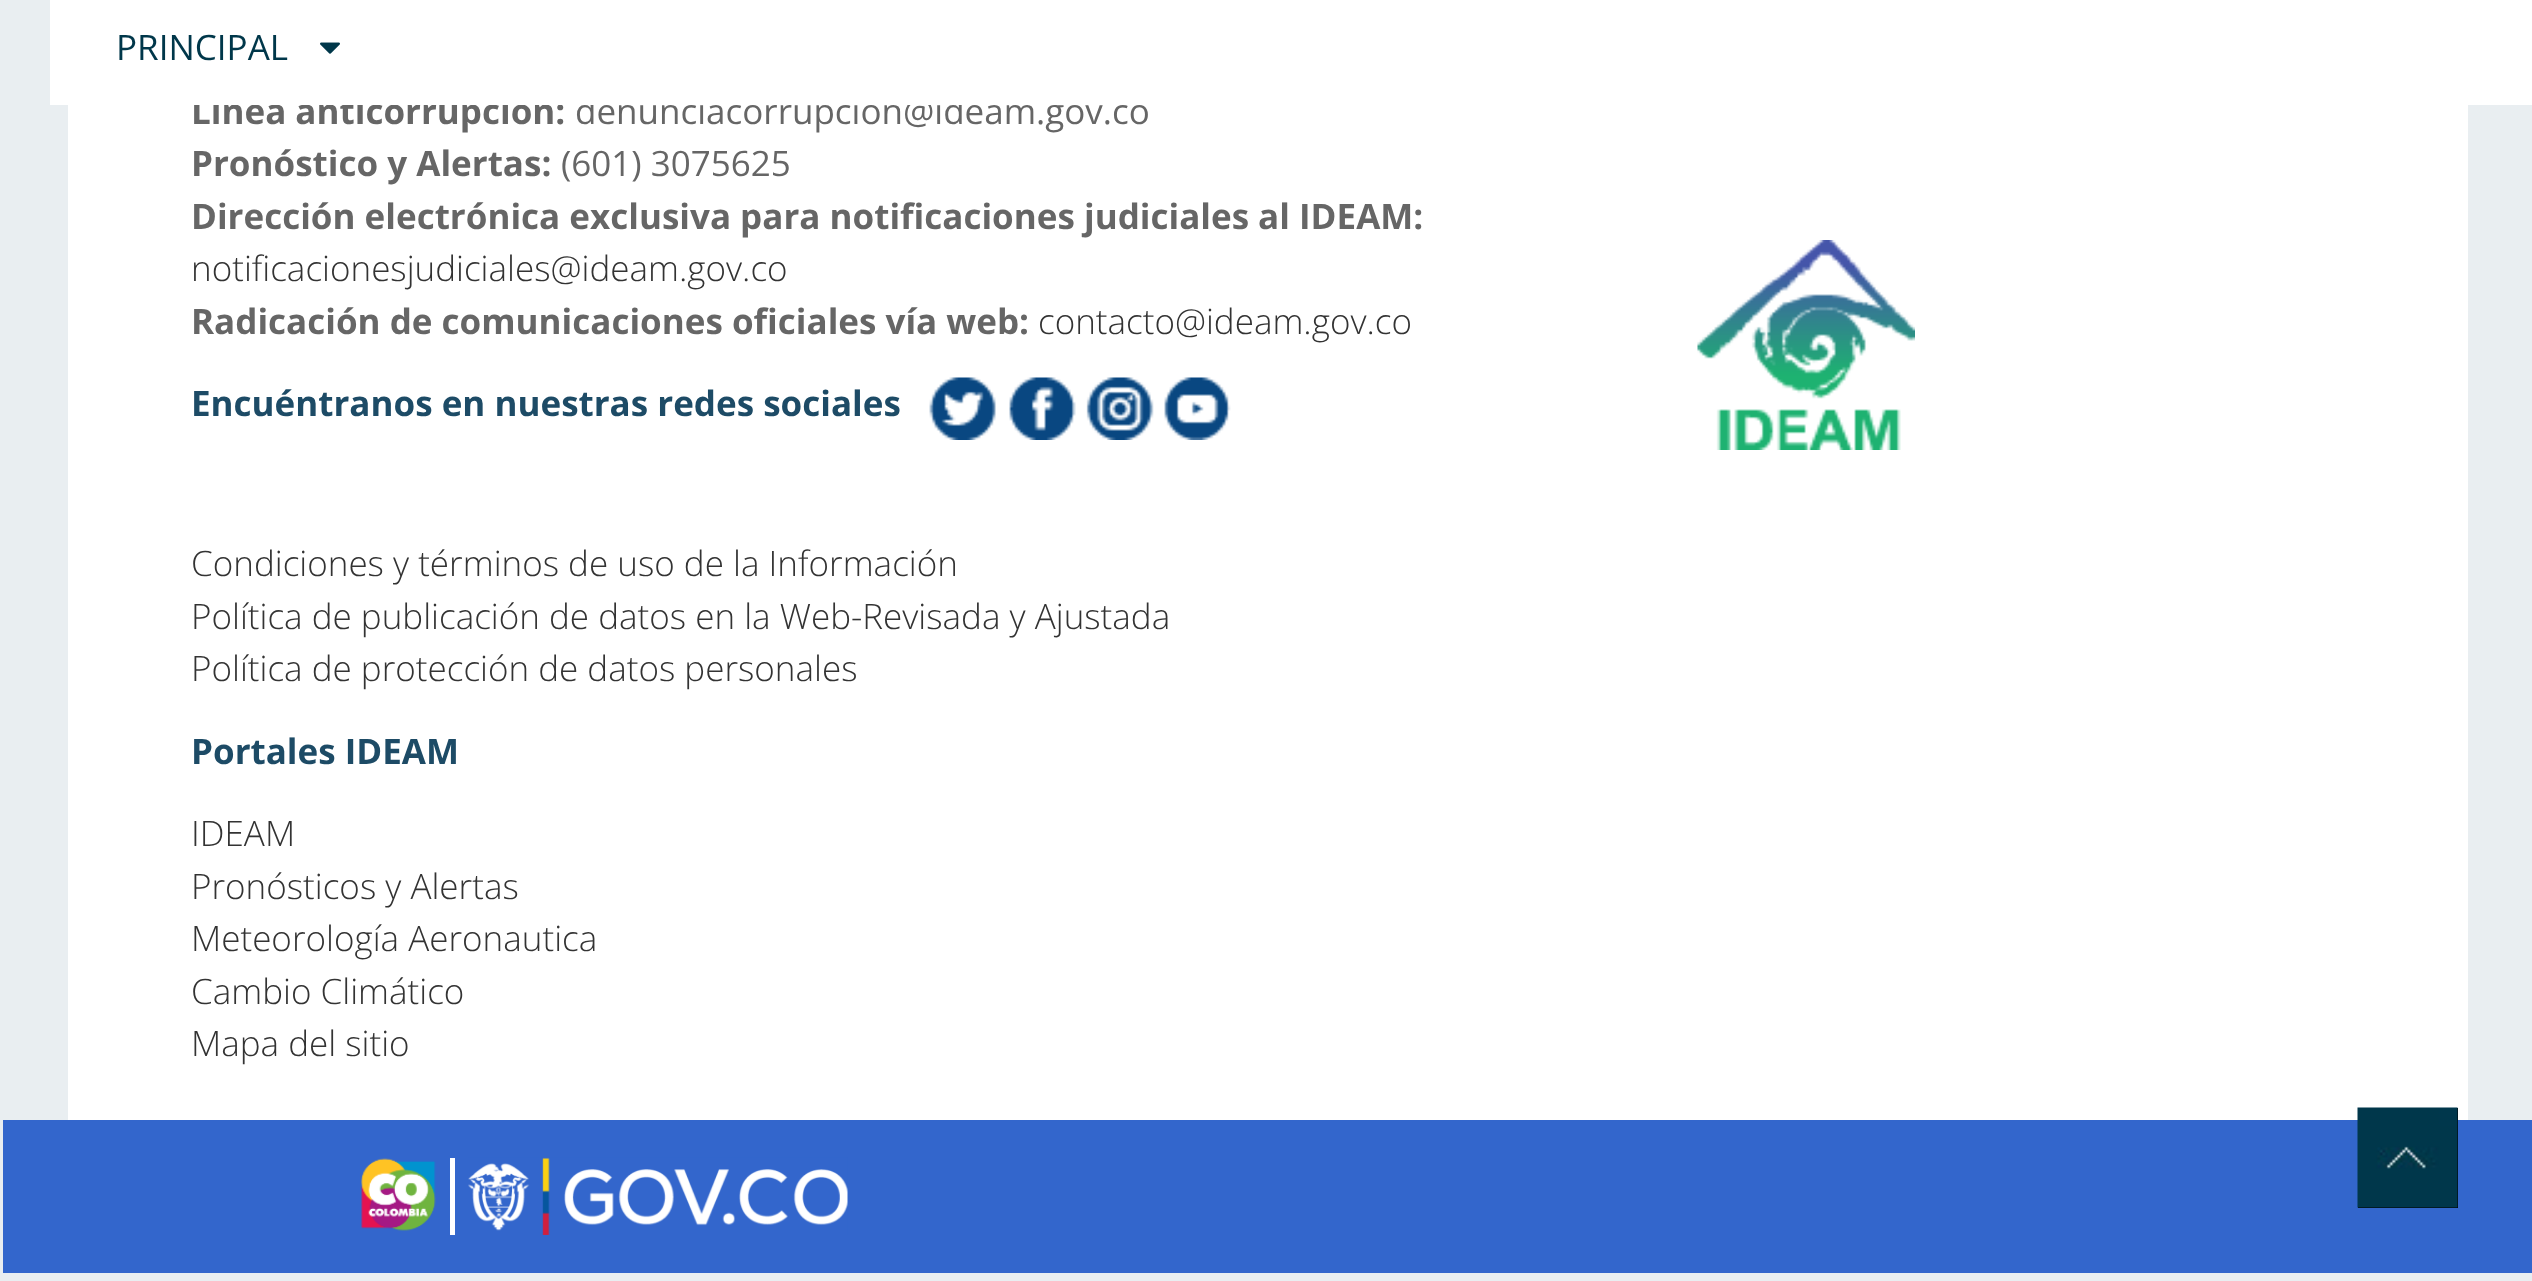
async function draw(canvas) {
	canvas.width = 2532;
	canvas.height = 1281;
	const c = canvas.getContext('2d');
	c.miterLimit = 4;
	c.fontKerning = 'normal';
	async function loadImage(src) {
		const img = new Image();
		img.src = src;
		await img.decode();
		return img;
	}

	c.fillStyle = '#e9eef1';
	c.fillRect(0, 0, 2532, 1281);
	c.fillStyle = '#fff';
	c.fillRect(68, 105, 2400, 1015);
	c.font = 'bold 35px Open Sans';
	c.fillStyle = '#666';
	c.fillText('Línea anticorrupción:', 191, 124);
	c.font = '35px Open Sans';
	c.fillText('denunciacorrupcion@ideam.gov.co', 575, 124);
	c.fillStyle = '#fff';
	c.fillRect(50, 0, 2482, 105);
	c.fillStyle = '#00374a';
	c.fillText('PRINCIPAL', 116, 60);
	c.drawImage(await loadImage('img1.png'), 320, 42, 20, 12);
	c.font = 'bold 35px Open Sans';
	c.fillStyle = '#666';
	c.fillText('Pronóstico y Alertas:', 191, 176);
	c.font = '35px Open Sans';
	c.fillText('(601) 3075625', 561, 176);
	c.font = 'bold 35px Open Sans';
	c.fillText('Dirección electrónica exclusiva para notificaciones judiciales al IDEAM:', 191, 229);
	c.font = '300 35px Open Sans';
	c.fillStyle = '#333';
	c.fillText('notificacionesjudiciales@ideam.gov.co', 191, 281);
	c.font = 'bold 35px Open Sans';
	c.fillStyle = '#666';
	c.fillText('Radicación de comunicaciones oficiales vía web:', 191, 334);
	c.font = '300 35px Open Sans';
	c.fillStyle = '#333';
	c.fillText('contacto@ideam.gov.co', 1038, 334);
	c.font = 'bold 35px Open Sans';
	c.fillStyle = '#1d4b66';
	c.fillText('Encuéntranos en nuestras redes sociales', 191, 416);
	c.drawImage(await loadImage('img2.png'), 929, 377, 67, 63);
	c.drawImage(await loadImage('img3.png'), 1009, 377, 67, 63);
	c.drawImage(await loadImage('img4.png'), 1086, 377, 68, 63);
	c.drawImage(await loadImage('img5.png'), 1164, 377, 67, 63);
	c.font = '300 35px Open Sans';
	c.fillStyle = '#333';
	for (const [text, x, y] of [
		['Condiciones y términos de uso de la Información', 191, 576],
		['Política de publicación de datos en la Web-Revisada y Ajustada', 191, 629],
		['Política de protección de datos personales', 191, 681],
	]) {
		c.fillText(text, x, y);
	}
	c.font = 'bold 35px Open Sans';
	c.fillStyle = '#1d4b66';
	c.fillText('Portales IDEAM', 191, 764);
	c.font = '300 35px Open Sans';
	c.fillStyle = '#333';
	for (const [text, x, y] of [
		['IDEAM', 191, 846],
		['Pronósticos y Alertas', 191, 899],
		['Meteorología Aeronautica', 191, 951],
		['Cambio Climático', 191, 1004],
		['Mapa del sitio', 191, 1056],
	]) {
		c.fillText(text, x, y);
	}
	c.drawImage(await loadImage('img6.png'), 1697, 240, 218, 210);
	c.fillStyle = '#36c';
	c.fillRect(3, 1120, 2529, 153);
	c.drawImage(await loadImage('img7.png'), 361, 1158, 75, 73);
	c.fillStyle = '#fff';
	c.fillRect(450, 1158, 5, 77);
	c.drawImage(await loadImage('img8.png'), 468, 1157, 380, 78);
	c.fillStyle = '#000';
	c.fillRect(2358, 1108, 100, 100);
	c.drawImage(await loadImage('img9.png'), 2357, 1107, 101, 101);
}

draw(document.querySelector('canvas'));
